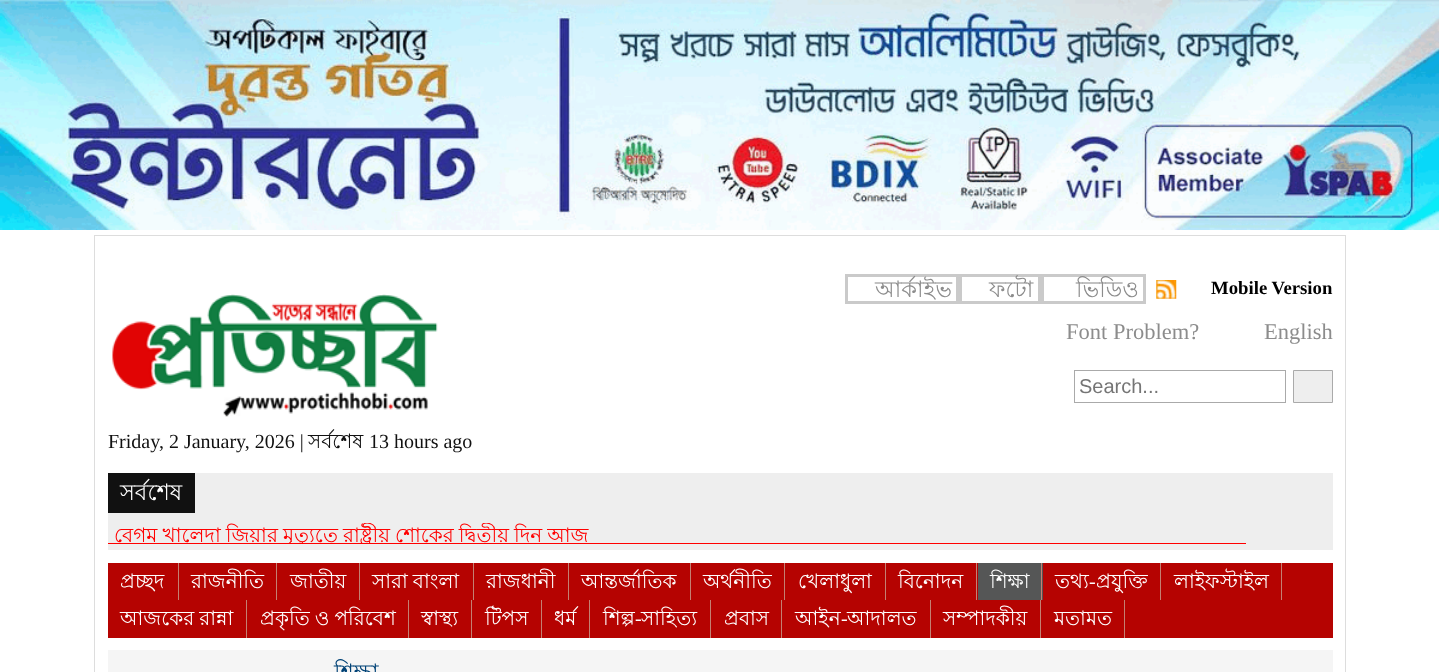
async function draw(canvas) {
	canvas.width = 1439;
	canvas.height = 672;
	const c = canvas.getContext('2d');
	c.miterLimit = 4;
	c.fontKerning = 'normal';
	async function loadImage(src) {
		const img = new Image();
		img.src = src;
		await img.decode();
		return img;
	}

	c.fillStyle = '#fff';
	c.fillRect(0, 0, 1439, 672);
	c.drawImage(await loadImage('img1.png'), 0, 0, 1439, 230);
	c.strokeStyle = '#ddd';
	c.strokeRect(94.5, 235.5, 1251, 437);
	c.strokeStyle = '#cacaca';
	c.lineWidth = 3;
	c.strokeRect(846.5, 275.5, 111, 27);
	c.font = '22.5px Lohit Bengali';
	c.fillStyle = '#8c8c8c';
	c.fillText('আর্কাইভ', 875, 297);
	c.strokeRect(960.5, 275.5, 79, 27);
	c.fillText('ফটো', 989, 297);
	c.strokeRect(1042.5, 275.5, 102, 27);
	c.fillText('ভিডিও', 1076, 297);
	c.drawImage(await loadImage('img2.png'), 1156, 280, 21, 19);
	c.font = 'bold 18.75px Liberation Serif';
	c.fillStyle = '#000';
	c.fillText('Mobile Version', 1211, 294);
	c.font = '22.5px Liberation Serif';
	c.fillStyle = '#8c8c8c';
	c.fillText('Font Problem?', 1066, 339);
	c.fillText('English', 1264, 339);
	c.strokeStyle = '#aaa';
	c.lineWidth = 1;
	c.strokeRect(1074.5, 370.5, 211, 32);
	c.font = '20px Liberation Sans';
	c.fillStyle = '#757575';
	c.fillText('Search...', 1079, 393);
	c.fillStyle = '#eee';
	c.beginPath();
	c.rect(1293.5, 370.5, 39, 32);
	c.fill();
	c.stroke();
	c.drawImage(await loadImage('img3.png'), 112, 294, 326, 123);
	c.font = '20px Liberation Serif';
	c.fillStyle = '#111';
	c.fillText('Friday, 2 January, 2026 |', 108, 448);
	c.font = '20px Lohit Bengali';
	c.fillText('সর্বশেষ', 308, 448);
	c.font = '20px Liberation Serif';
	c.fillText('13 hours ago', 369, 448);
	c.fillStyle = '#eee';
	c.fillRect(108, 473, 1225, 77);
	c.fillStyle = '#111';
	c.fillRect(108, 473, 87, 40);
	c.font = '22.5px Lohit Bengali';
	c.fillStyle = '#fff';
	c.fillText('সর্বশেষ', 120, 500);
	c.fillStyle = '#f00';
	c.fillRect(108, 543, 1138, 1);
	c.save();
	c.beginPath();
	c.rect(114, 523, 1126, 20);
	c.clip();
	c.wordSpacing = '-0.5px';
	c.font = '20px Lohit Bengali';
	c.fillText('বেগম খালেদা জিয়ার মৃত্যুতে রাষ্ট্রীয় শোকের দ্বিতীয় দিন আজ', 114, 542);
	c.restore();
	c.fillStyle = '#b50301';
	c.fillRect(108, 563, 1225, 75);
	c.fillStyle = '#c48073';
	c.fillRect(178, 563, 1, 37);
	c.font = '20px Lohit Bengali';
	c.fillStyle = '#fff';
	c.fillText('প্রচ্ছদ', 120, 588);
	c.fillStyle = '#c48073';
	c.fillRect(276, 563, 1, 37);
	c.fillStyle = '#fff';
	c.fillText('রাজনীতি', 191, 588);
	c.fillStyle = '#c48073';
	c.fillRect(359, 563, 1, 37);
	c.fillStyle = '#fff';
	c.fillText('জাতীয়', 290, 588);
	c.fillStyle = '#c48073';
	c.fillRect(473, 563, 1, 37);
	c.wordSpacing = '-0.5px';
	c.fillStyle = '#fff';
	c.fillText('সারা বাংলা', 372, 588);
	c.fillStyle = '#c48073';
	c.fillRect(568, 563, 1, 37);
	c.wordSpacing = '0px';
	c.fillStyle = '#fff';
	c.fillText('রাজধানী', 486, 588);
	c.fillStyle = '#c48073';
	c.fillRect(690, 563, 1, 37);
	c.fillStyle = '#fff';
	c.fillText('আন্তর্জাতিক', 581, 588);
	c.fillStyle = '#c48073';
	c.fillRect(784, 563, 1, 37);
	c.fillStyle = '#fff';
	c.fillText('অর্থনীতি', 703, 588);
	c.fillStyle = '#c48073';
	c.fillRect(885, 563, 1, 37);
	c.fillStyle = '#fff';
	c.fillText('খেলাধুলা', 798, 588);
	c.fillStyle = '#c48073';
	c.fillRect(976, 563, 1, 37);
	c.fillStyle = '#fff';
	c.fillText('বিনোদন', 898, 588);
	c.fillStyle = '#555656';
	c.fillRect(978, 563, 65, 37);
	c.fillStyle = '#c48073';
	c.fillRect(1041, 563, 1, 37);
	c.fillStyle = '#fff';
	c.fillText('শিক্ষা', 990, 588);
	c.fillStyle = '#c48073';
	c.fillRect(1160, 563, 1, 37);
	c.fillStyle = '#fff';
	c.fillText('তথ্য', 1055, 588);
	c.font = '20px Liberation Serif';
	c.fillText('-', 1089, 588);
	c.font = '20px Lohit Bengali';
	c.fillText('প্রযুক্তি', 1096, 588);
	c.fillStyle = '#c48073';
	c.fillRect(1281, 563, 1, 37);
	c.fillStyle = '#fff';
	c.fillText('লাইফস্টাইল', 1174, 588);
	c.fillStyle = '#c48073';
	c.fillRect(246, 600, 1, 38);
	c.wordSpacing = '-0.5px';
	c.fillStyle = '#fff';
	c.fillText('আজকের রান্না', 120, 625);
	c.fillStyle = '#c48073';
	c.fillRect(408, 600, 1, 38);
	c.fillStyle = '#fff';
	c.fillText('প্রকৃতি ও পরিবেশ', 260, 625);
	c.fillStyle = '#c48073';
	c.fillRect(471, 600, 1, 38);
	c.wordSpacing = '0px';
	c.fillStyle = '#fff';
	c.fillText('স্বাস্থ্য', 421, 625);
	c.fillStyle = '#c48073';
	c.fillRect(541, 600, 1, 38);
	c.fillStyle = '#fff';
	c.fillText('টিপস', 485, 625);
	c.fillStyle = '#c48073';
	c.fillRect(589, 600, 1, 38);
	c.fillStyle = '#fff';
	c.fillText('ধর্ম', 554, 625);
	c.fillStyle = '#c48073';
	c.fillRect(710, 600, 1, 38);
	c.fillStyle = '#fff';
	c.fillText('শিল্প', 603, 625);
	c.font = '20px Liberation Serif';
	c.fillText('-', 635, 625);
	c.font = '20px Lohit Bengali';
	c.fillText('সাহিত্য', 641, 625);
	c.fillStyle = '#c48073';
	c.fillRect(781, 600, 1, 38);
	c.fillStyle = '#fff';
	c.fillText('প্রবাস', 724, 625);
	c.fillStyle = '#c48073';
	c.fillRect(930, 600, 1, 38);
	c.fillStyle = '#fff';
	c.fillText('আইন', 795, 625);
	c.font = '20px Liberation Serif';
	c.fillText('-', 841, 625);
	c.font = '20px Lohit Bengali';
	c.fillText('আদালত', 847, 625);
	c.fillStyle = '#c48073';
	c.fillRect(1040, 600, 1, 38);
	c.fillStyle = '#fff';
	c.fillText('সম্পাদকীয়', 943, 625);
	c.fillStyle = '#c48073';
	c.fillRect(1124, 600, 1, 38);
	c.fillStyle = '#fff';
	c.fillText('মতামত', 1054, 625);
	c.fillStyle = '#f5f5f5';
	c.fillRect(108, 650, 1225, 22);
	c.font = '22.5px Lohit Bengali';
	c.fillStyle = '#004276';
	c.fillText('শিক্ষা', 334, 680);
}

draw(document.querySelector('canvas'));
